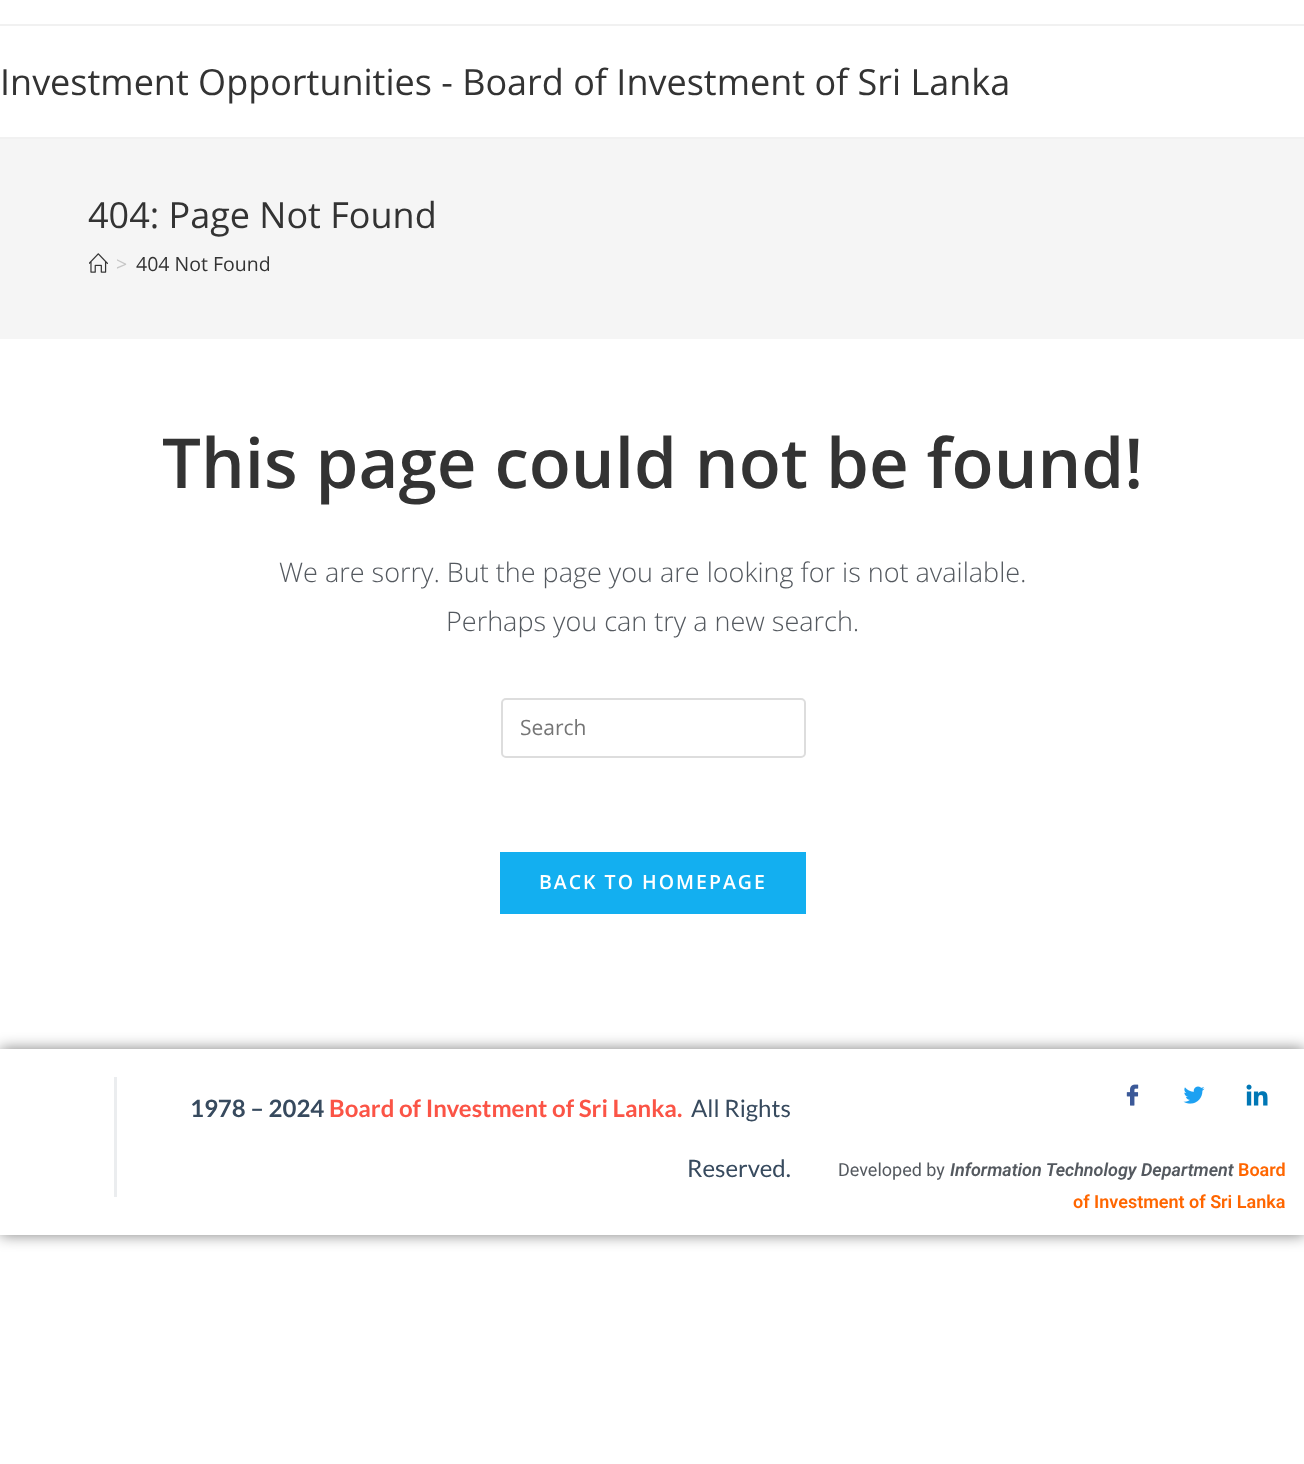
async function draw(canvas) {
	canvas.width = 1304;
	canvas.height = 1464;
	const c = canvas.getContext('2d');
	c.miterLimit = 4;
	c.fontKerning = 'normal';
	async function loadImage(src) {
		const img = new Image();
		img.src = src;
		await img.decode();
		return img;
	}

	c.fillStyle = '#fff';
	c.fillRect(0, 0, 1304, 1464);
	c.fillStyle = '#f1f1f1';
	c.fillRect(0, 24, 1304, 2);
	c.fillRect(0, 137, 1304, 2);
	c.font = '36px Open Sans';
	c.fillStyle = '#333';
	c.fillText('Investment Opportunities - Board of Investment of Sri Lanka', 0, 95);
	c.fillStyle = '#f5f5f5';
	c.fillRect(0, 139, 1304, 200);
	c.fillStyle = '#333';
	c.fillText('404: Page Not Found', 88, 228);
	c.drawImage(await loadImage('img1.png'), 89, 253, 19, 20);
	c.font = '19.5px Open Sans';
	c.fillStyle = '#c6c6c6';
	c.fillText('>', 116, 271);
	c.fillStyle = '#333';
	c.fillText('404 Not Found', 136, 271);
	c.font = '600 69px Open Sans';
	c.fillText('This page could not be found!', 162, 488);
	c.font = '300 27px Open Sans';
	c.fillStyle = '#54595f';
	c.fillText('We are sorry. But the page you are looking for is not available.', 279, 582);
	c.fillText('Perhaps you can try a new search.', 446, 631);
	c.beginPath();
	c.roundRect(502, 699, 303, 58, 4);
	c.strokeStyle = '#ddd';
	c.lineWidth = 2;
	c.stroke();
	c.font = '21px Open Sans';
	c.fillStyle = '#757575';
	c.fillText('Search', 520, 735);
	c.fillStyle = '#13aff0';
	c.fillRect(500, 852, 306, 62);
	c.letterSpacing = '2px';
	c.font = '600 19.5px Open Sans';
	c.fillStyle = '#fff';
	c.fillText('BACK TO HOMEPAGE', 539, 889);
	c.fillStyle = '#00000080';
	c.filter = 'blur(7.5px)';
	c.beginPath();
	c.rect(0, 1049, 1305, 186);
	c.fill();
	c.filter = 'none';
	c.fillStyle = '#fff';
	c.fillRect(0, 1049, 1304, 186);
	c.fillStyle = '#ebedef';
	c.fillRect(114, 1077, 3, 120);
	c.letterSpacing = '0px';
	c.font = 'bold 24px Lato';
	c.fillStyle = '#374a5e';
	c.fillText('1978 – 2024', 190, 1117);
	c.fillStyle = '#fb5446';
	c.fillText('Board of Investment of Sri Lanka.', 329, 1117);
	c.font = '24px Lato';
	c.fillStyle = '#374a5e';
	c.fillText('All Rights', 691, 1117);
	c.fillText('Reserved.', 687, 1177);
	c.drawImage(await loadImage('img2.png'), 1126, 1084, 13, 22);
	c.drawImage(await loadImage('img3.png'), 1183, 1086, 22, 18);
	c.drawImage(await loadImage('img4.png'), 1246, 1084, 22, 22);
	c.font = '18px Roboto';
	c.fillStyle = '#54595f';
	c.fillText('Developed by', 838, 1176);
	c.font = 'italic 600 18px Roboto';
	c.fillText('Information Technology Department', 950, 1176);
	c.font = '600 18px Roboto';
	c.fillStyle = '#f60';
	c.fillText('Board', 1238, 1176);
	c.fillText('of Investment of Sri Lanka', 1073, 1208);
}

draw(document.querySelector('canvas'));
